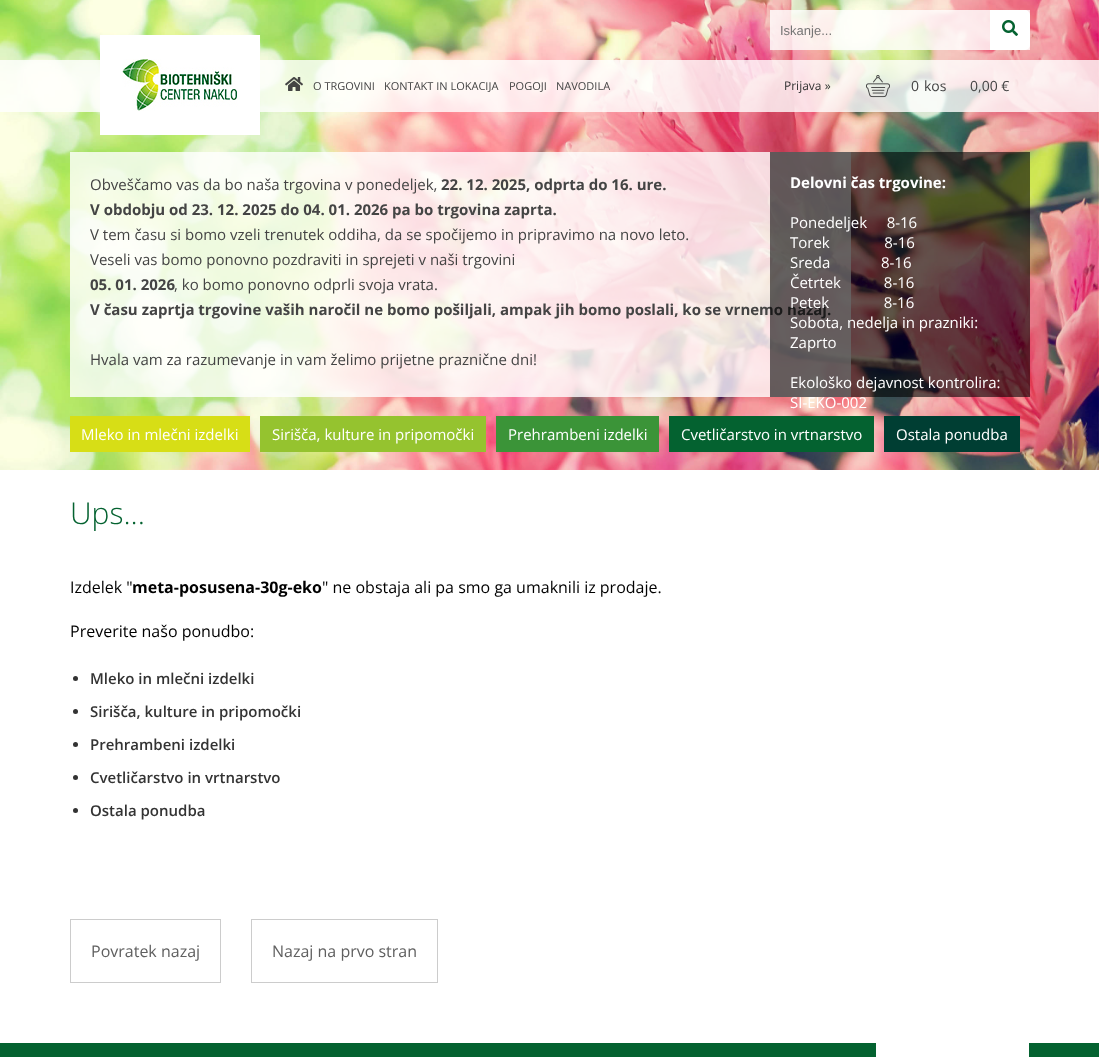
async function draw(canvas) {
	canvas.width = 1099;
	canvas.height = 1057;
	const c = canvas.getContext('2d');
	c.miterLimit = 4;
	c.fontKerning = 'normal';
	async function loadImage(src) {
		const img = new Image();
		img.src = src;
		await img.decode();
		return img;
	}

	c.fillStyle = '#046230';
	c.fillRect(0, 0, 1099, 1057);
	c.drawImage(await loadImage('img1.png'), 0, 0, 1099, 470);
	c.fillStyle = '#ffffffcc';
	c.fillRect(0, 60, 1099, 52);
	c.fillRect(770, 10, 260, 40);
	c.font = '13px Liberation Sans';
	c.fillStyle = '#757575';
	c.fillText('Iskanje...', 780, 35);
	c.fillStyle = '#fff';
	c.beginPath();
	c.roundRect(990, 10, 40, 40, [0, 5, 5, 0]);
	c.fill();
	c.drawImage(await loadImage('img2.png'), 1002, 20, 16, 16);
	c.fillRect(100, 35, 160, 100);
	c.drawImage(await loadImage('img3.png'), 122, 59, 116, 52);
	c.drawImage(await loadImage('img4.png'), 285, 77, 18, 14);
	c.font = '11px Open Sans';
	c.fillStyle = '#444';
	for (const [text, x, y] of [
		['O TRGOVINI', 313, 90],
		['KONTAKT IN LOKACIJA', 384, 90],
		['POGOJI', 509, 90],
		['NAVODILA', 556, 90],
	]) {
		c.fillText(text, x, y);
	}
	c.font = '12px Open Sans';
	c.fillStyle = '#333';
	c.fillText('Prijava »', 784, 90);
	c.drawImage(await loadImage('img5.png'), 866, 75, 24, 23);
	c.font = '14px Open Sans';
	c.fillStyle = '#444';
	for (const [text, x, y] of [
		['0', 911, 91],
		['kos', 924, 91],
		['0,00 €', 970, 91],
	]) {
		c.fillText(text, x, y);
	}
	c.fillStyle = '#ffffffcc';
	c.fillRect(70, 152, 781, 245);
	c.font = '15px Open Sans';
	c.fillStyle = '#444';
	c.fillText('Obveščamo vas da bo naša trgovina v ponedeljek,', 90, 190);
	c.font = 'bold 15px Open Sans';
	c.fillText('22. 12. 2025, odprta do 16. ure.', 441, 190);
	c.fillText('V obdobju od 23. 12. 2025 do 04. 01. 2026 pa bo trgovina zaprta.', 90, 215);
	c.font = '15px Open Sans';
	c.fillText('V tem času si bomo vzeli trenutek oddiha, da se spočijemo in pripravimo na novo leto.', 90, 240);
	c.fillText('Veseli vas bomo ponovno pozdraviti in sprejeti v naši trgovini', 90, 265);
	c.font = 'bold 15px Open Sans';
	c.fillText('05. 01. 2026', 90, 290);
	c.font = '15px Open Sans';
	c.fillText(', ko bomo ponovno odprli svoja vrata.', 174, 290);
	c.font = 'bold 15px Open Sans';
	c.fillText('V času zaprtja trgovine vaših naročil ne bomo pošiljali, ampak jih bomo poslali, ko se vrnemo nazaj.', 90, 315);
	c.font = '15px Open Sans';
	c.fillText('Hvala vam za razumevanje in vam želimo prijetne praznične dni!', 90, 365);
	c.fillStyle = '#00000099';
	c.fillRect(770, 152, 260, 245);
	c.font = 'bold 15px Open Sans';
	c.fillStyle = '#fff';
	c.fillText('Delovni čas trgovine:', 790, 188);
	c.font = '15px Open Sans';
	for (const [text, x, y] of [
		['Ponedeljek     8-16', 790, 228],
		['Torek              8-16', 790, 248],
		['Sreda             8-16', 790, 268],
		['Četrtek           8-16', 790, 288],
		['Petek              8-16', 790, 308],
		['Sobota, nedelja in prazniki:', 790, 328],
		['Zaprto', 790, 348],
		['Ekološko dejavnost kontrolira:', 790, 388],
		['SI-EKO-002', 790, 408],
	]) {
		c.fillText(text, x, y);
	}
	c.fillStyle = '#d7de16';
	c.fillRect(70, 416, 180, 36);
	c.fillStyle = '#fff';
	c.fillText('Mleko in mlečni izdelki', 81, 440);
	c.fillStyle = '#95c32f';
	c.fillRect(260, 416, 226, 36);
	c.fillStyle = '#fff';
	c.fillText('Sirišča, kulture in pripomočki', 272, 440);
	c.fillStyle = '#3b9438';
	c.fillRect(496, 416, 163, 36);
	c.fillStyle = '#fff';
	c.fillText('Prehrambeni izdelki', 508, 440);
	c.fillStyle = '#046230';
	c.fillRect(669, 416, 205, 36);
	c.fillStyle = '#fff';
	c.fillText('Cvetličarstvo in vrtnarstvo', 681, 440);
	c.fillStyle = '#003e33';
	c.fillRect(884, 416, 136, 36);
	c.fillStyle = '#fff';
	c.fillText('Ostala ponudba', 896, 440);
	c.fillRect(0, 470, 1099, 573);
	c.font = '300 30px Open Sans';
	c.fillStyle = '#046230';
	c.fillText('Ups...', 70, 524);
	c.font = '16px Open Sans';
	c.fillStyle = '#000';
	c.fillText('Izdelek "', 70, 593);
	c.font = 'bold 16px Open Sans';
	c.fillText('meta-posusena-30g-eko', 132, 593);
	c.font = '16px Open Sans';
	c.fillText('" ne obstaja ali pa smo ga umaknili iz prodaje.', 322, 593);
	c.fillText('Preverite našo ponudbo:', 70, 637);
	c.fillStyle = '#333';
	c.beginPath();
	c.arc(75.5, 678.5, 2.5, 0, 2 * Math.PI);
	c.fill();
	c.font = '600 15px Open Sans';
	c.fillText('Mleko in mlečni izdelki', 90, 684);
	c.beginPath();
	c.arc(75.5, 711.5, 2.5, 0, 2 * Math.PI);
	c.fill();
	c.fillText('Sirišča, kulture in pripomočki', 90, 717);
	c.beginPath();
	c.arc(75.5, 744.5, 2.5, 0, 2 * Math.PI);
	c.fill();
	c.fillText('Prehrambeni izdelki', 90, 750);
	c.beginPath();
	c.arc(75.5, 777.5, 2.5, 0, 2 * Math.PI);
	c.fill();
	c.fillText('Cvetličarstvo in vrtnarstvo', 90, 783);
	c.beginPath();
	c.arc(75.5, 810.5, 2.5, 0, 2 * Math.PI);
	c.fill();
	c.fillText('Ostala ponudba', 90, 816);
	c.strokeStyle = '#ccc';
	c.strokeRect(70.5, 919.5, 150, 63);
	c.font = '16px Open Sans';
	c.fillStyle = '#606060';
	c.fillText('Povratek nazaj', 91, 957);
	c.strokeRect(251.5, 919.5, 186, 63);
	c.fillText('Nazaj na prvo stran', 272, 957);
	c.fillStyle = '#fff';
	c.fillRect(876, 1043, 153, 14);
}

draw(document.querySelector('canvas'));
